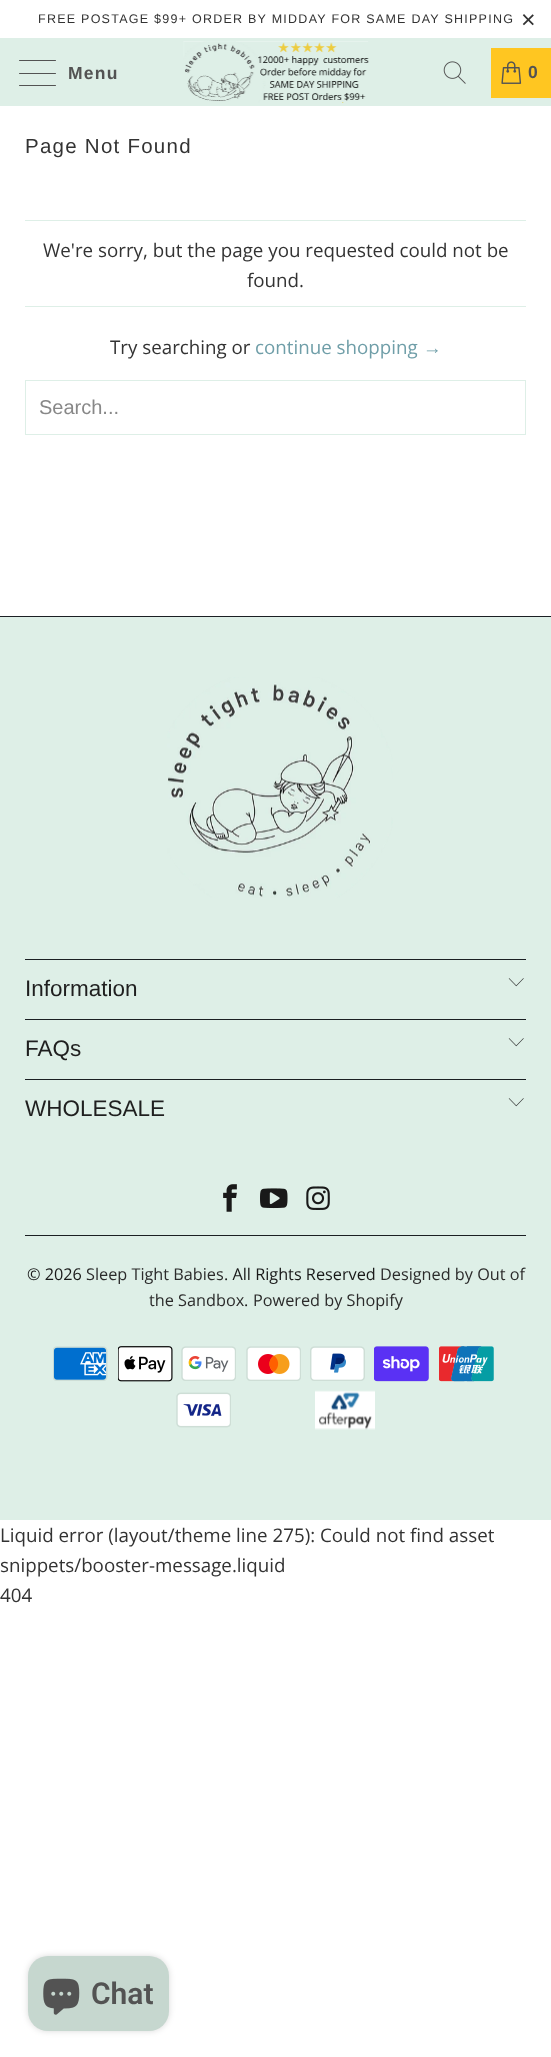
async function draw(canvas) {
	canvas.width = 551;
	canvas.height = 2057;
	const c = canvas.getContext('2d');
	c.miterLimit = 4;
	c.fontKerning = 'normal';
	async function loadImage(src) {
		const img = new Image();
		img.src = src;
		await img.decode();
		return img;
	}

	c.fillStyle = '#fff';
	c.fillRect(0, 0, 551, 2057);
	c.letterSpacing = '1.25px';
	c.font = '12.5px Liberation Sans';
	c.fillStyle = '#333';
	c.fillText('FREE POSTAGE $99+ ORDER BY MIDDAY FOR SAME DAY SHIPPING', 38, 23);
	c.font = '25px Liberation Sans';
	c.fillText('×', 521, 28);
	c.fillStyle = '#deefe7';
	c.fillRect(0, 38, 551, 68);
	c.fillStyle = '#535353';
	c.beginPath();
	c.roundRect(19, 60, 37, 1, 0.5);
	c.fill();
	c.beginPath();
	c.roundRect(19, 73, 37, 1, 0.5);
	c.fill();
	c.beginPath();
	c.roundRect(19, 85, 37, 1, 0.5);
	c.fill();
	c.font = 'bold 17.5px Liberation Sans';
	c.fillText('Menu', 68, 79);
	c.drawImage(await loadImage('img1.png'), 183, 41, 186, 62);
	c.drawImage(await loadImage('img2.png'), 443, 61, 23, 23);
	c.fillStyle = '#ffc621';
	c.fillRect(491, 48, 60, 50);
	c.drawImage(await loadImage('img3.png'), 501, 61, 21, 23);
	c.fillStyle = '#535353';
	c.fillText('0', 528, 78);
	c.font = '20.5px Liberation Sans';
	c.fillStyle = '#333';
	c.fillText('Page Not Found', 25, 153);
	c.fillStyle = '#deefe7';
	c.fillRect(25, 220, 501, 1);
	c.fillRect(25, 306, 501, 1);
	c.letterSpacing = '0px';
	c.font = '18.75px Open Sans';
	c.fillStyle = '#333';
	for (const [text, x, y] of [
		['We\'re sorry, but the page you requested could not be', 43, 257],
		['found.', 247, 287],
		['Try searching or', 110, 354],
	]) {
		c.fillText(text, x, y);
	}
	c.fillStyle = '#6f9ea8';
	c.fillText('continue shopping', 255, 354);
	c.font = '18.75px Liberation Sans';
	c.fillText('→', 423, 354);
	c.strokeStyle = '#deefe7';
	c.strokeRect(25.5, 380.5, 500, 54);
	c.font = '20px Liberation Sans';
	c.fillStyle = '#888';
	c.fillText('Search...', 39, 414);
	c.fillStyle = '#deefe7';
	c.fillRect(0, 617, 551, 903);
	c.fillStyle = '#1b1f23';
	c.fillRect(0, 616, 551, 1);
	c.drawImage(await loadImage('img4.png'), 167, 677, 226, 221);
	c.fillRect(25, 959, 501, 1);
	c.font = '22.5px Liberation Sans';
	c.fillStyle = '#1f1f1f';
	c.fillText('Information', 25, 996);
	c.drawImage(await loadImage('img5.png'), 508, 978, 16, 9);
	c.fillStyle = '#1b1f23';
	c.fillRect(25, 1019, 501, 1);
	c.fillStyle = '#1f1f1f';
	c.fillText('FAQs', 25, 1056);
	c.drawImage(await loadImage('img5.png'), 508, 1038, 16, 9);
	c.fillStyle = '#1b1f23';
	c.fillRect(25, 1079, 501, 1);
	c.fillStyle = '#1f1f1f';
	c.fillText('WHOLESALE', 25, 1116);
	c.drawImage(await loadImage('img5.png'), 508, 1098, 16, 9);
	c.drawImage(await loadImage('img6.png'), 223, 1184, 14, 28);
	c.drawImage(await loadImage('img7.png'), 260, 1188, 28, 21);
	c.drawImage(await loadImage('img8.png'), 306, 1186, 24, 24);
	c.fillStyle = '#1b1f23';
	c.fillRect(25, 1235, 501, 1);
	c.font = '16.25px Open Sans';
	c.fillStyle = '#191919';
	c.fillText('© 2026', 27, 1280);
	c.fillStyle = '#2b2b2b';
	c.fillText('Sleep Tight Babies', 86, 1280);
	c.fillStyle = '#191919';
	c.fillText('. All Rights Reserved', 224, 1280);
	c.fillStyle = '#2b2b2b';
	c.fillText('Designed by Out of', 380, 1280);
	c.fillText('the Sandbox', 149, 1306);
	c.fillStyle = '#191919';
	c.fillText('.', 244, 1306);
	c.fillStyle = '#2b2b2b';
	c.fillText('Powered by Shopify', 253, 1306);
	c.drawImage(await loadImage('img9.png'), 53, 1346, 55, 35);
	c.drawImage(await loadImage('img10.png'), 118, 1346, 55, 36);
	c.drawImage(await loadImage('img11.png'), 181, 1346, 55, 35);
	c.drawImage(await loadImage('img12.png'), 246, 1346, 55, 35);
	c.drawImage(await loadImage('img13.png'), 310, 1346, 55, 35);
	c.drawImage(await loadImage('img14.png'), 374, 1346, 55, 36);
	c.drawImage(await loadImage('img15.png'), 439, 1346, 55, 36);
	c.drawImage(await loadImage('img16.png'), 176, 1392, 55, 36);
	c.drawImage(await loadImage('img17.png'), 315, 1390, 60, 40);
	c.font = '18.75px Open Sans';
	c.fillStyle = '#333';
	for (const [text, x, y] of [
		['Liquid error (layout/theme line 275): Could not find asset', 0, 1542],
		['snippets/booster-message.liquid', 0, 1572],
		['404', 0, 1602],
	]) {
		c.fillText(text, x, y);
	}
	c.fillStyle = '#00000026';
	c.filter = 'blur(3px)';
	c.beginPath();
	c.roundRect(28, 1956, 141, 75, 20);
	c.fill();
	c.filter = 'none';
	c.fillStyle = '#c6d7cf';
	c.beginPath();
	c.roundRect(28, 1956, 141, 75, 20);
	c.fill();
	c.drawImage(await loadImage('img18.png'), 43, 1978, 37, 37);
	c.font = '600 30px Roboto';
	c.fillStyle = '#535353';
	c.fillText('Chat', 91, 2004);
}

draw(document.querySelector('canvas'));
